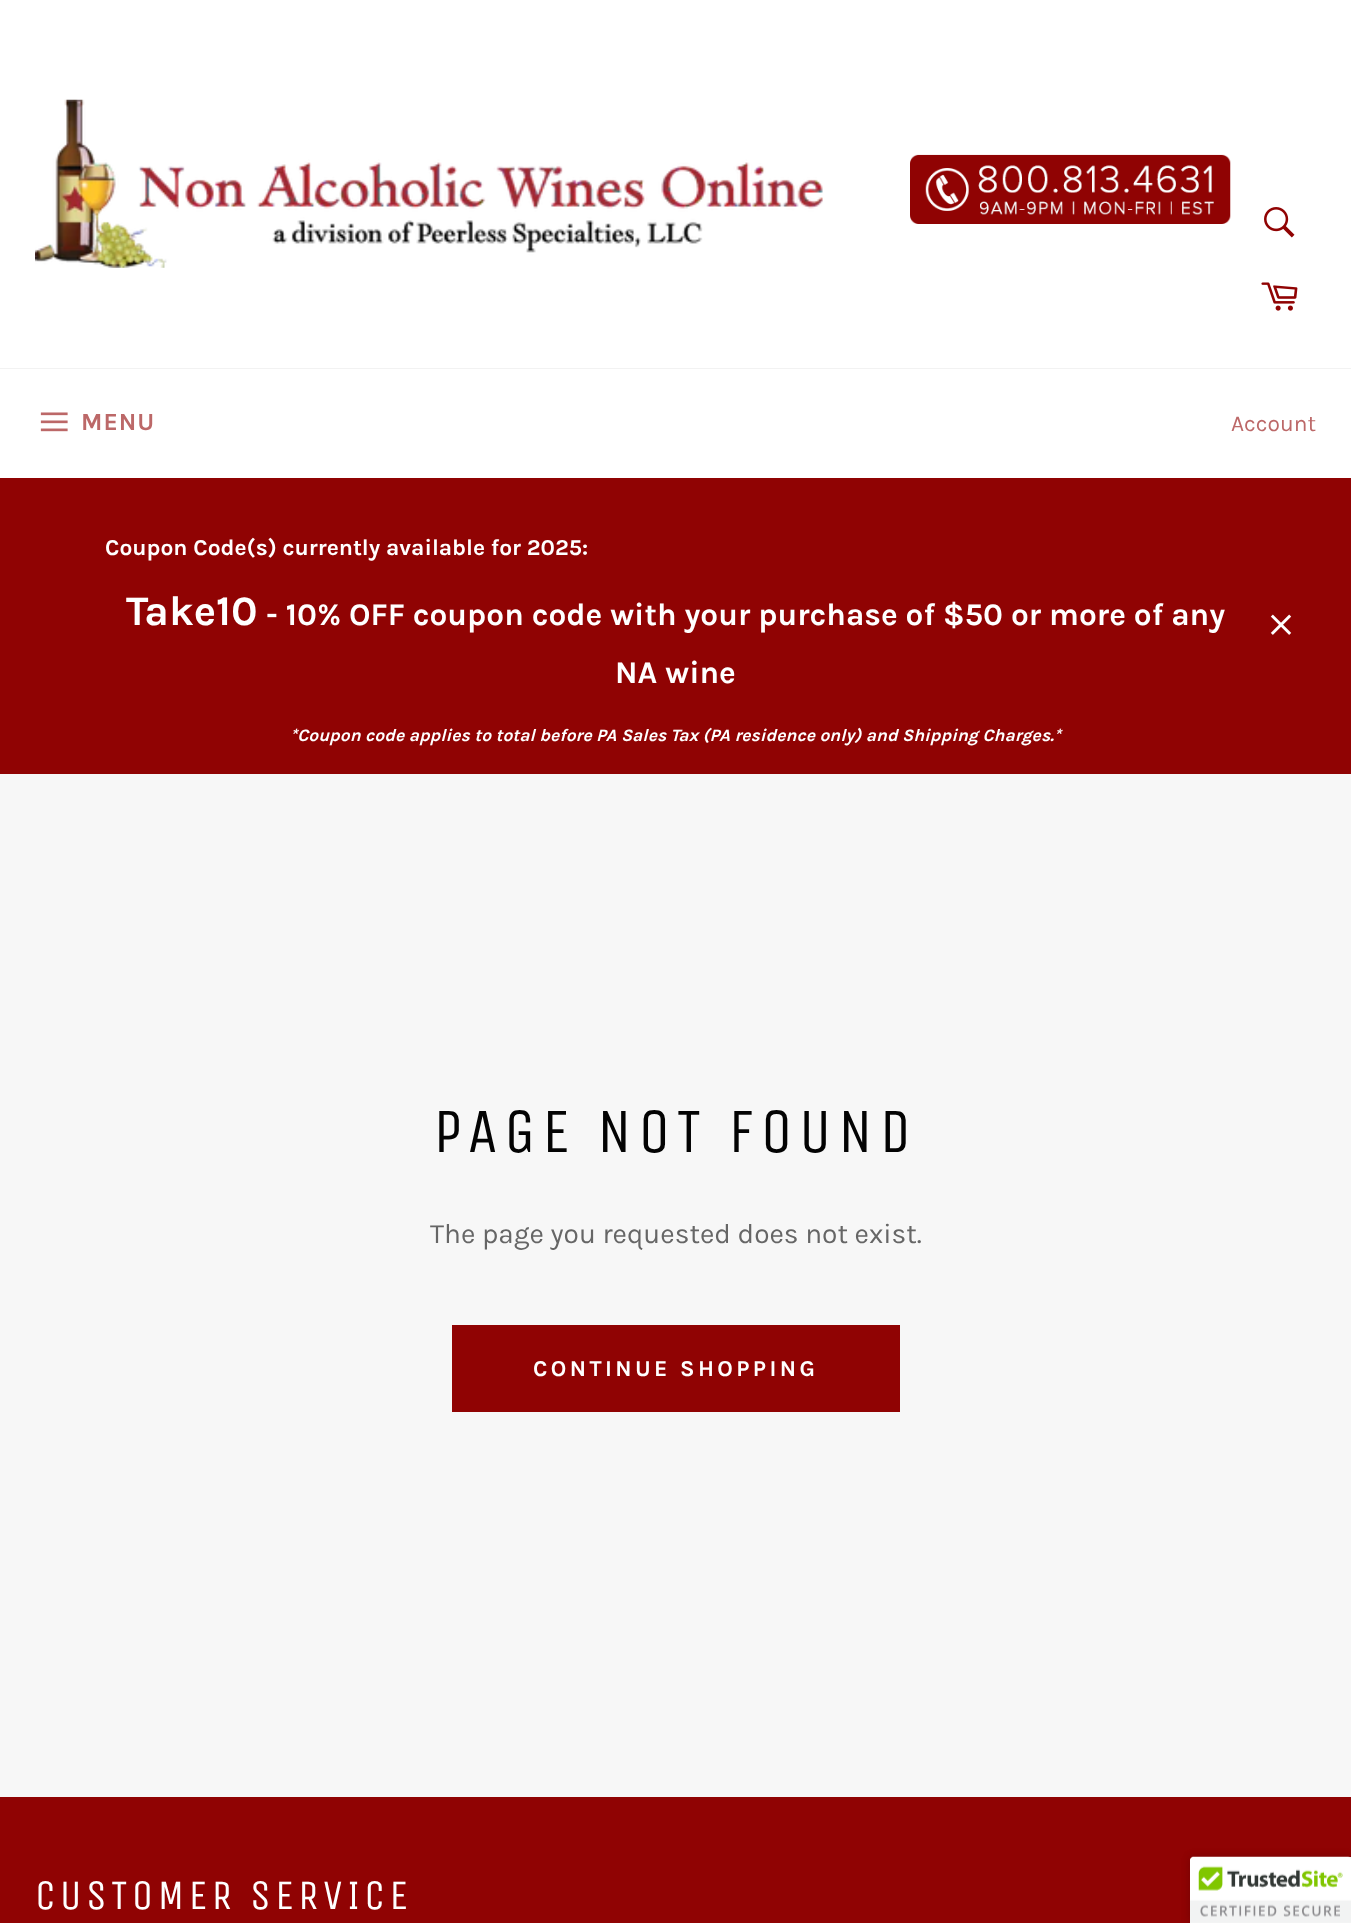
async function draw(canvas) {
	canvas.width = 1351;
	canvas.height = 1923;
	const c = canvas.getContext('2d');
	c.miterLimit = 4;
	c.fontKerning = 'normal';
	async function loadImage(src) {
		const img = new Image();
		img.src = src;
		await img.decode();
		return img;
	}

	c.fillStyle = '#f7f7f7';
	c.fillRect(0, 0, 1351, 1923);
	c.fillStyle = '#fff';
	c.fillRect(0, 0, 1351, 368);
	c.drawImage(await loadImage('img1.png'), 35, 99, 788, 169);
	c.drawImage(await loadImage('img2.png'), 910, 154, 321, 70);
	c.drawImage(await loadImage('img3.png'), 1264, 207, 31, 31);
	c.drawImage(await loadImage('img4.png'), 1261, 282, 37, 29);
	c.fillStyle = '#f2f2f2';
	c.fillRect(0, 368, 1351, 1);
	c.fillStyle = '#fff';
	c.fillRect(0, 369, 1351, 109);
	c.drawImage(await loadImage('img5.png'), 40, 412, 28, 20);
	c.letterSpacing = '1px';
	c.font = 'bold 24.5px Karla';
	c.fillStyle = '#bc6868';
	c.fillText('MENU', 81, 430);
	c.letterSpacing = '0px';
	c.font = '22.75px Karla';
	c.fillText('Account', 1231, 431);
	c.fillStyle = '#900303';
	c.fillRect(0, 478, 1351, 296);
	c.font = 'bold 22.75px Karla';
	c.fillStyle = '#fff';
	c.fillText('Coupon Code(s) currently available for 2025:', 105, 555);
	c.font = 'bold 42px Karla';
	c.fillText('Take10', 126, 625);
	c.font = 'bold 31.5px Karla';
	c.fillText('- 10% OFF coupon code with your purchase of $50 or more of any', 266, 625);
	c.fillText('NA wine', 615, 683);
	c.font = 'italic bold 17.5px Karla';
	c.fillText('*Coupon code applies to total before PA Sales Tax (PA residence only) and Shipping Charges.*', 290, 741);
	c.drawImage(await loadImage('img6.png'), 1270, 614, 22, 21);
	c.letterSpacing = '6.25px';
	c.font = '63px Unica One';
	c.fillStyle = '#030303';
	c.fillText('PAGE NOT FOUND', 433, 1152);
	c.letterSpacing = '0px';
	c.font = '28px Karla';
	c.fillStyle = '#666';
	c.fillText('The page you requested does not exist.', 430, 1243);
	c.fillStyle = '#900303';
	c.fillRect(452, 1325, 448, 87);
	c.letterSpacing = '3.4px';
	c.font = 'bold 22.75px Karla';
	c.fillStyle = '#fff';
	c.fillText('CONTINUE SHOPPING', 533, 1376);
	c.fillStyle = '#900303';
	c.fillRect(0, 1797, 1351, 126);
	c.letterSpacing = '4.25px';
	c.font = '42px Unica One';
	c.fillStyle = '#fff';
	c.fillText('CUSTOMER SERVICE', 35, 1909);
	c.fillStyle = '#00000033';
	c.filter = 'blur(4.5px)';
	c.beginPath();
	c.roundRect(1190, 1857, 161, 66, 4);
	c.fill();
	c.filter = 'none';
	c.fillStyle = '#fff';
	c.beginPath();
	c.roundRect(1190, 1857, 161, 66, [4, 0, 0, 0]);
	c.fill();
	c.drawImage(await loadImage('img7.png'), 1190, 1856, 161, 67);
}

draw(document.querySelector('canvas'));
